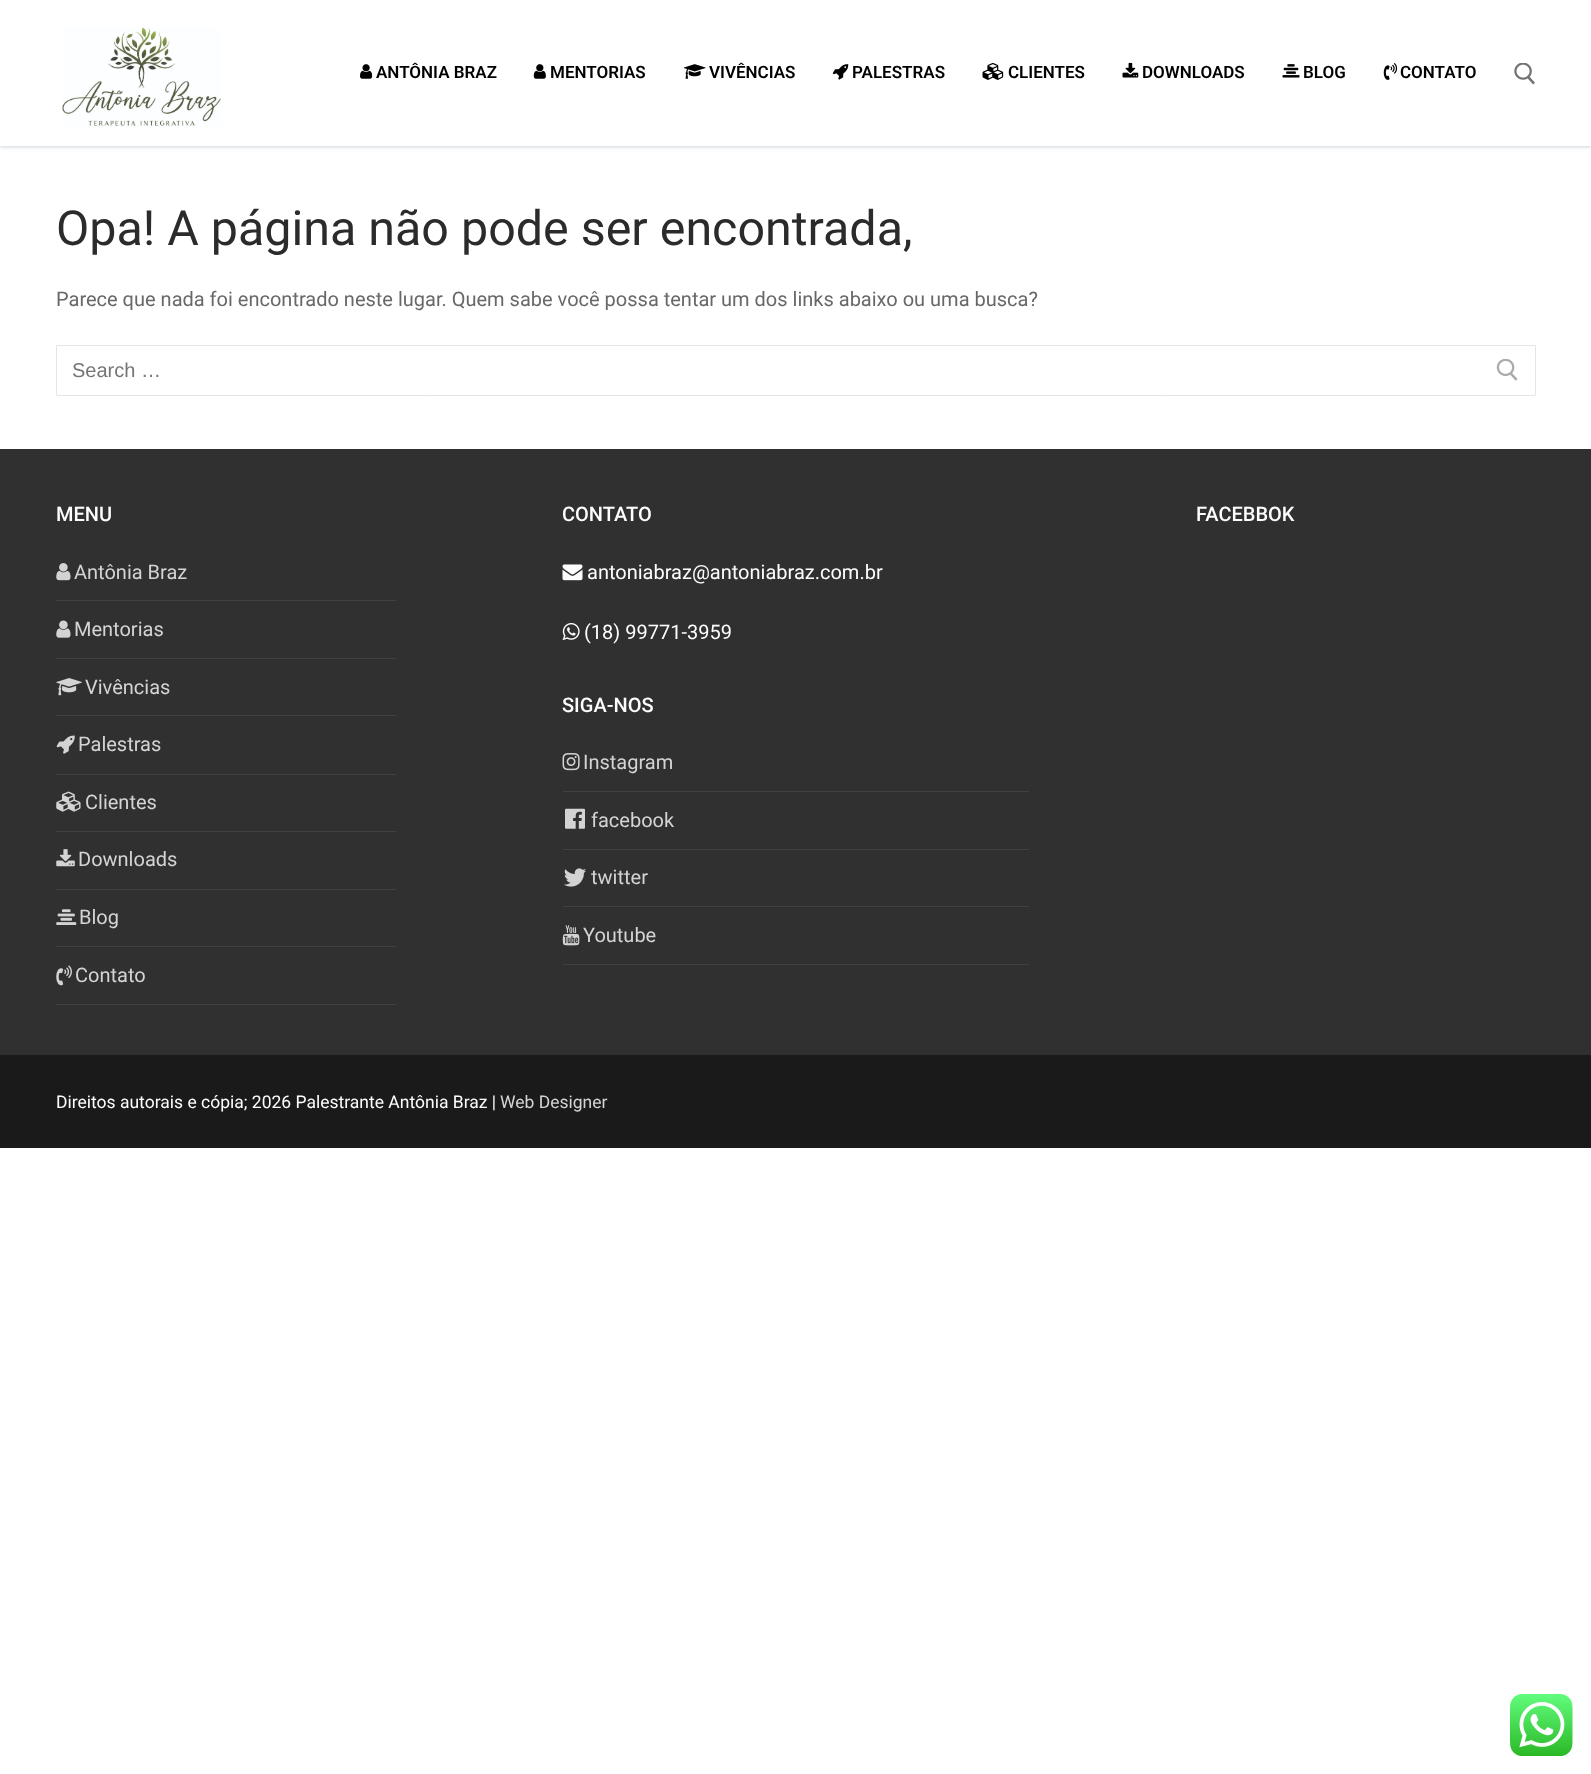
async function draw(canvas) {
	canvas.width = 1591;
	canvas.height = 1774;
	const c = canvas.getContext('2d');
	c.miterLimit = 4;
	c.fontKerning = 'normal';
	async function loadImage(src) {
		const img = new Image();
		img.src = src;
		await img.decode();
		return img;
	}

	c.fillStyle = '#fff';
	c.fillRect(0, 0, 1591, 1774);
	c.save();
	c.beginPath();
	c.rect(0, 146, 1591, 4);
	c.clip();
	c.fillStyle = '#e1e5ea';
	c.filter = 'blur(1px)';
	c.beginPath();
	c.rect(0, 1, 1591, 147);
	c.fill();
	c.filter = 'none';
	c.restore();
	c.drawImage(await loadImage('img1.png'), 62, 27, 159, 100);
	c.drawImage(await loadImage('img2.png'), 360, 64, 13, 15);
	c.font = '600 17px Roboto';
	c.fillStyle = '#000';
	c.fillText('ANTÔNIA BRAZ', 376, 78);
	c.drawImage(await loadImage('img3.png'), 533, 64, 13, 15);
	c.fillText('MENTORIAS', 550, 78);
	c.drawImage(await loadImage('img4.png'), 683, 64, 23, 15);
	c.fillText('VIVÊNCIAS', 709, 78);
	c.drawImage(await loadImage('img5.png'), 832, 64, 17, 16);
	c.fillText('PALESTRAS', 852, 78);
	c.drawImage(await loadImage('img6.png'), 982, 62, 22, 18);
	c.fillText('CLIENTES', 1008, 78);
	c.drawImage(await loadImage('img7.png'), 1122, 62, 17, 16);
	c.fillText('DOWNLOADS', 1142, 78);
	c.drawImage(await loadImage('img8.png'), 1282, 64, 18, 14);
	c.fillText('BLOG', 1303, 78);
	c.drawImage(await loadImage('img9.png'), 1383, 63, 15, 17);
	c.fillText('CONTATO', 1400, 78);
	c.drawImage(await loadImage('img10.png'), 1514, 63, 21, 22);
	c.font = '48.4px Roboto';
	c.fillStyle = '#2b2b2b';
	c.fillText('Opa! A página não pode ser encontrada,', 56, 245);
	c.font = '20px Roboto';
	c.fillStyle = '#686868';
	c.fillText('Parece que nada foi encontrado neste lugar. Quem sabe você possa tentar um dos links abaixo ou uma busca?', 56, 306);
	c.beginPath();
	c.roundRect(56.5, 345.5, 1479, 50, 0.5);
	c.strokeStyle = '#e5e5e5';
	c.stroke();
	c.font = '20px Liberation Sans';
	c.fillStyle = '#757575';
	c.fillText('Search …', 72, 377);
	c.drawImage(await loadImage('img11.png'), 1496, 359, 22, 22);
	c.fillStyle = '#303030';
	c.fillRect(0, 449, 1591, 606);
	c.font = '500 20px Roboto';
	c.fillStyle = '#fdfdfd';
	c.fillText('MENU', 56, 521);
	c.fillStyle = '#414141';
	c.fillRect(56, 600, 340, 1);
	c.drawImage(await loadImage('img12.png'), 56, 563, 15, 18);
	c.font = '20px Roboto';
	c.fillStyle = '#d4d4d4';
	c.fillText('Antônia Braz', 74, 579);
	c.fillStyle = '#414141';
	c.fillRect(56, 658, 340, 1);
	c.drawImage(await loadImage('img13.png'), 56, 620, 15, 18);
	c.fillStyle = '#d4d4d4';
	c.fillText('Mentorias', 74, 636);
	c.fillStyle = '#414141';
	c.fillRect(56, 715, 340, 1);
	c.drawImage(await loadImage('img14.png'), 56, 678, 26, 18);
	c.fillStyle = '#d4d4d4';
	c.fillText('Vivências', 85, 694);
	c.fillStyle = '#414141';
	c.fillRect(56, 774, 340, 1);
	c.drawImage(await loadImage('img15.png'), 56, 735, 19, 19);
	c.fillStyle = '#d4d4d4';
	c.fillText('Palestras', 78, 751);
	c.fillStyle = '#414141';
	c.fillRect(56, 831, 340, 1);
	c.drawImage(await loadImage('img16.png'), 56, 791, 25, 21);
	c.fillStyle = '#d4d4d4';
	c.fillText('Clientes', 85, 809);
	c.fillStyle = '#414141';
	c.fillRect(56, 889, 340, 1);
	c.drawImage(await loadImage('img17.png'), 56, 849, 19, 18);
	c.fillStyle = '#d4d4d4';
	c.fillText('Downloads', 78, 866);
	c.fillStyle = '#414141';
	c.fillRect(56, 946, 340, 1);
	c.drawImage(await loadImage('img18.png'), 56, 909, 21, 16);
	c.fillStyle = '#d4d4d4';
	c.fillText('Blog', 79, 924);
	c.fillStyle = '#414141';
	c.fillRect(56, 1004, 340, 1);
	c.drawImage(await loadImage('img19.png'), 56, 965, 16, 21);
	c.fillStyle = '#d4d4d4';
	c.fillText('Contato', 75, 982);
	c.font = '500 20px Roboto';
	c.fillStyle = '#fdfdfd';
	c.fillText('CONTATO', 562, 521);
	c.drawImage(await loadImage('img20.png'), 562, 564, 21, 17);
	c.font = '20px Roboto';
	c.fillText('antoniabraz@antoniabraz.com.br', 587, 579);
	c.drawImage(await loadImage('img21.png'), 562, 623, 18, 18);
	c.fillText('(18) 99771-3959', 584, 639);
	c.font = '500 20px Roboto';
	c.fillText('SIGA-NOS', 562, 712);
	c.fillStyle = '#414141';
	c.fillRect(563, 791, 466, 1);
	c.drawImage(await loadImage('img22.png'), 562, 753, 18, 18);
	c.font = '20px Roboto';
	c.fillStyle = '#d4d4d4';
	c.fillText('Instagram', 583, 769);
	c.fillStyle = '#414141';
	c.fillRect(563, 849, 466, 1);
	c.drawImage(await loadImage('img23.png'), 565, 808, 20, 21);
	c.fillStyle = '#d4d4d4';
	c.fillText('facebook', 591, 827);
	c.fillStyle = '#414141';
	c.fillRect(563, 906, 466, 1);
	c.drawImage(await loadImage('img24.png'), 564, 868, 22, 19);
	c.fillStyle = '#d4d4d4';
	c.fillText('twitter', 591, 884);
	c.fillStyle = '#414141';
	c.fillRect(563, 964, 466, 1);
	c.drawImage(await loadImage('img25.png'), 562, 925, 18, 21);
	c.fillStyle = '#d4d4d4';
	c.fillText('Youtube', 583, 942);
	c.font = '500 20px Roboto';
	c.fillStyle = '#fdfdfd';
	c.fillText('FACEBBOK', 1196, 521);
	c.fillStyle = '#1a1a1a';
	c.fillRect(0, 1055, 1591, 93);
	c.font = '17.5px Roboto';
	c.fillStyle = '#fdfdfd';
	c.fillText('Direitos autorais e cópia; 2026 Palestrante Antônia Braz |', 56, 1108);
	c.fillStyle = '#d4d4d4';
	c.fillText('Web Designer', 500, 1108);
	c.drawImage(await loadImage('img26.png'), 1510, 1694, 63, 62);
}

draw(document.querySelector('canvas'));
